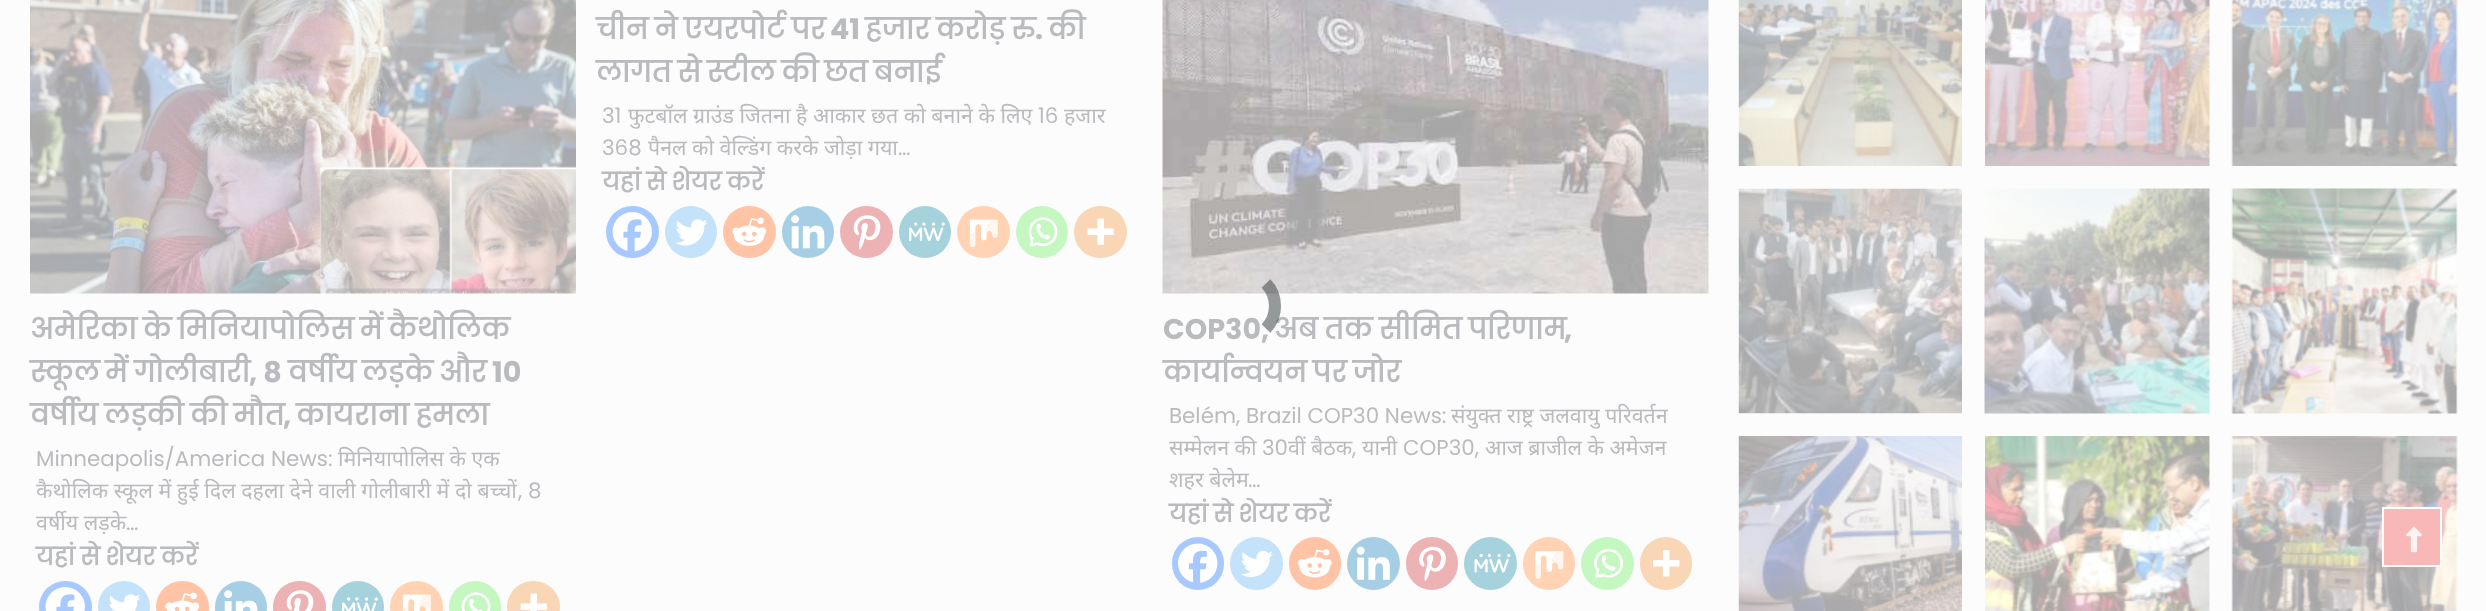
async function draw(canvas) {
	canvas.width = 2486;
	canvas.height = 611;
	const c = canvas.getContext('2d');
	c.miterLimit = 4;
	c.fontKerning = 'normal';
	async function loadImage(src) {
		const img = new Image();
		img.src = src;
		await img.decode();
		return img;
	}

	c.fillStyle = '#fcfcfc';
	c.fillRect(0, 0, 2486, 611);
	c.wordSpacing = '-1px';
	c.font = 'bold 28.6px Poppins';
	c.fillStyle = '#babbbe';
	c.fillText('चीन ने एयरपोर्ट पर', 596, 39);
	c.wordSpacing = '0px';
	c.font = 'bold 28.6px "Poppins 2"';
	c.fillText('41', 830, 39);
	c.wordSpacing = '-1px';
	c.font = 'bold 28.6px Poppins';
	c.fillText('हजार करोड़ रु', 865, 39);
	c.wordSpacing = '0px';
	c.font = 'bold 28.6px "Poppins 2"';
	c.fillText('.', 1035, 39);
	c.font = 'bold 28.6px Poppins';
	c.fillText('की', 1048, 39);
	c.wordSpacing = '-1.5px';
	c.fillText('लागत से स्टील की छत बनाई', 596, 82);
	c.wordSpacing = '0px';
	c.font = '21.4px Poppins';
	c.fillText('31', 602, 123);
	c.font = '21.4px Noto Sans';
	c.fillText('फुटबॉल ग्राउंड जितना है आकार छत को बनाने के लिए', 628, 123);
	c.font = '21.4px Poppins';
	c.fillText('16', 1038, 123);
	c.font = '21.4px Noto Sans';
	c.fillText('हजार', 1064, 123);
	c.font = '21.4px Poppins';
	c.fillText('368', 602, 155);
	c.font = '21.4px Noto Sans';
	c.fillText('पैनल को वेल्डिंग करके जोड़ा गया', 648, 155);
	c.font = '21.4px Poppins';
	c.fillText('…', 898, 155);
	c.wordSpacing = '-1px';
	c.font = 'bold 24px Poppins';
	c.fillText('यहां से शेयर करें', 602, 190);
	c.fillStyle = '#a8c9ff';
	c.beginPath();
	c.roundRect(606, 206, 53, 52, 26);
	c.fill();
	c.drawImage(await loadImage('img1.png'), 612, 212, 40, 40);
	c.fillStyle = '#c4e2f9';
	c.beginPath();
	c.arc(691, 232, 26, 0, 2 * Math.PI);
	c.fill();
	c.drawImage(await loadImage('img2.png'), 675, 219, 33, 27);
	c.fillStyle = '#ffc4a6';
	c.beginPath();
	c.roundRect(723, 206, 53, 52, 26);
	c.fill();
	c.drawImage(await loadImage('img3.png'), 732, 217, 35, 29);
	c.fillStyle = '#a6cfe5';
	c.beginPath();
	c.arc(808, 232, 26, 0, 2 * Math.PI);
	c.fill();
	c.drawImage(await loadImage('img4.png'), 791, 215, 34, 34);
	c.fillStyle = '#edb2b4';
	c.beginPath();
	c.roundRect(840, 206, 53, 52, 26);
	c.fill();
	c.drawImage(await loadImage('img5.png'), 853, 215, 28, 35);
	c.fillStyle = '#a6d2de';
	c.beginPath();
	c.arc(925, 232, 26, 0, 2 * Math.PI);
	c.fill();
	c.drawImage(await loadImage('img6.png'), 909, 222, 36, 20);
	c.fillStyle = '#ffd3b3';
	c.beginPath();
	c.roundRect(957, 206, 53, 52, 26);
	c.fill();
	c.drawImage(await loadImage('img7.png'), 969, 219, 29, 29);
	c.fillStyle = '#c4f8c0';
	c.beginPath();
	c.arc(1042, 232, 26, 0, 2 * Math.PI);
	c.fill();
	c.drawImage(await loadImage('img8.png'), 1028, 217, 30, 30);
	c.fillStyle = '#f9d7b6';
	c.beginPath();
	c.roundRect(1074, 206, 53, 52, 26);
	c.fill();
	c.drawImage(await loadImage('img9.png'), 1087, 218, 27, 27);
	c.drawImage(await loadImage('img10.png'), 30, 0, 546, 294);
	c.wordSpacing = '-1.5px';
	c.font = 'bold 28.6px Poppins';
	c.fillStyle = '#babbbe';
	c.fillText('अमेरिका के मिनियापोलिस में कैथोलिक', 30, 339);
	c.wordSpacing = '0px';
	for (const [text, x, y] of [
		['स्कूल', 30, 382],
		['में', 105, 382],
		['गोलीबारी', 134, 382],
	]) {
		c.fillText(text, x, y);
	}
	c.font = 'bold 28.6px "Poppins 2"';
	c.fillText(', 8', 249, 382);
	c.font = 'bold 28.6px Poppins';
	for (const [text, x, y] of [
		['वर्षीय', 288, 382],
		['लड़के', 362, 382],
		['और', 439, 382],
	]) {
		c.fillText(text, x, y);
	}
	c.font = 'bold 28.6px "Poppins 2"';
	c.fillText('10', 492, 382);
	c.wordSpacing = '-1px';
	c.font = 'bold 28.6px Poppins';
	c.fillText('वर्षीय लड़की की मौत', 30, 425);
	c.wordSpacing = '0px';
	c.font = 'bold 28.6px "Poppins 2"';
	c.fillText(',', 283, 425);
	c.wordSpacing = '-1px';
	c.font = 'bold 28.6px Poppins';
	c.fillText('कायराना हमला', 296, 425);
	c.wordSpacing = '0px';
	c.font = '21.4px Poppins';
	c.fillText('Minneapolis/America News:', 36, 466);
	c.font = '21.4px Noto Sans';
	c.fillText('मिनियापोलिस के एक', 338, 466);
	c.fillText('कैथोलिक स्कूल में हुई दिल दहला देने वाली गोलीबारी में दो बच्चों', 36, 498);
	c.font = '21.4px Poppins';
	c.fillText(', 8', 518, 498);
	c.font = '21.4px Noto Sans';
	c.fillText('वर्षीय लड़के', 36, 530);
	c.font = '21.4px Poppins';
	c.fillText('…', 126, 530);
	c.wordSpacing = '-1px';
	c.font = 'bold 24px Poppins';
	c.fillText('यहां से शेयर करें', 36, 565);
	c.fillStyle = '#a8c9ff';
	c.beginPath();
	c.roundRect(39, 581, 53, 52, 26);
	c.fill();
	c.drawImage(await loadImage('img11.png'), 45, 587, 40, 24);
	c.fillStyle = '#c4e2f9';
	c.beginPath();
	c.arc(124, 607, 26, 0, 2 * Math.PI);
	c.fill();
	c.drawImage(await loadImage('img12.png'), 109, 594, 32, 17);
	c.fillStyle = '#ffc4a6';
	c.beginPath();
	c.roundRect(156, 581, 53, 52, 26);
	c.fill();
	c.drawImage(await loadImage('img13.png'), 165, 592, 35, 19);
	c.fillStyle = '#a6cfe5';
	c.beginPath();
	c.arc(241, 607, 26, 0, 2 * Math.PI);
	c.fill();
	c.drawImage(await loadImage('img14.png'), 224, 590, 34, 21);
	c.fillStyle = '#edb2b4';
	c.beginPath();
	c.roundRect(273, 581, 53, 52, 26);
	c.fill();
	c.drawImage(await loadImage('img15.png'), 286, 590, 28, 21);
	c.fillStyle = '#a6d2de';
	c.beginPath();
	c.arc(358, 607, 26, 0, 2 * Math.PI);
	c.fill();
	c.drawImage(await loadImage('img16.png'), 342, 597, 36, 14);
	c.fillStyle = '#ffd3b3';
	c.beginPath();
	c.roundRect(390, 581, 53, 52, 26);
	c.fill();
	c.drawImage(await loadImage('img17.png'), 402, 594, 29, 17);
	c.fillStyle = '#c4f8c0';
	c.beginPath();
	c.arc(475, 607, 26, 0, 2 * Math.PI);
	c.fill();
	c.drawImage(await loadImage('img18.png'), 461, 592, 30, 19);
	c.fillStyle = '#f9d7b6';
	c.beginPath();
	c.roundRect(507, 581, 53, 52, 26);
	c.fill();
	c.drawImage(await loadImage('img19.png'), 520, 593, 27, 18);
	c.drawImage(await loadImage('img20.png'), 1162, 0, 547, 294);
	c.wordSpacing = '0px';
	c.font = 'bold 28.6px "Poppins 2"';
	c.fillStyle = '#babbbe';
	c.fillText('COP30,', 1163, 339);
	c.wordSpacing = '-1px';
	c.font = 'bold 28.6px Poppins';
	c.fillText('अब तक सीमित परिणाम', 1274, 339);
	c.wordSpacing = '0px';
	c.font = 'bold 28.6px "Poppins 2"';
	c.fillText(',', 1564, 339);
	c.wordSpacing = '-1.5px';
	c.font = 'bold 28.6px Poppins';
	c.fillText('कार्यान्वयन पर जोर', 1163, 382);
	c.wordSpacing = '0px';
	c.font = '21.4px Poppins';
	c.fillText('Belém, Brazil COP30 News:', 1169, 423);
	c.font = '21.4px Noto Sans';
	c.fillText('संयुक्त राष्ट्र जलवायु परिवर्तन', 1451, 423);
	c.fillText('सम्मेलन की', 1169, 455);
	c.font = '21.4px Poppins';
	c.fillText('30', 1262, 455);
	c.font = '21.4px Noto Sans';
	c.fillText('वीं बैठक', 1288, 455);
	c.font = '21.4px Poppins';
	c.fillText(',', 1352, 455);
	c.font = '21.4px Noto Sans';
	c.fillText('यानी', 1362, 455);
	c.font = '21.4px Poppins';
	c.fillText('COP30,', 1403, 455);
	c.font = '21.4px Noto Sans';
	c.fillText('आज ब्राजील के अमेजन', 1485, 455);
	c.fillText('शहर बेलेम', 1169, 487);
	c.font = '21.4px Poppins';
	c.fillText('…', 1248, 487);
	c.wordSpacing = '-1px';
	c.font = 'bold 24px Poppins';
	c.fillText('यहां से शेयर करें', 1169, 522);
	c.fillStyle = '#a8c9ff';
	c.beginPath();
	c.roundRect(1172, 537, 52, 53, 26);
	c.fill();
	c.drawImage(await loadImage('img21.png'), 1178, 543, 40, 40);
	c.fillStyle = '#c4e2f9';
	c.beginPath();
	c.arc(1256.5, 563.5, 26.5, 0, 2 * Math.PI);
	c.fill();
	c.drawImage(await loadImage('img22.png'), 1241, 550, 32, 28);
	c.fillStyle = '#ffc4a6';
	c.beginPath();
	c.roundRect(1289, 537, 52, 53, 26);
	c.fill();
	c.drawImage(await loadImage('img23.png'), 1297, 549, 35, 29);
	c.fillStyle = '#a6cfe5';
	c.beginPath();
	c.arc(1373.5, 563.5, 26.5, 0, 2 * Math.PI);
	c.fill();
	c.drawImage(await loadImage('img24.png'), 1356, 546, 34, 34);
	c.fillStyle = '#edb2b4';
	c.beginPath();
	c.roundRect(1406, 537, 52, 53, 26);
	c.fill();
	c.drawImage(await loadImage('img25.png'), 1419, 546, 27, 36);
	c.fillStyle = '#a6d2de';
	c.beginPath();
	c.arc(1490.5, 563.5, 26.5, 0, 2 * Math.PI);
	c.fill();
	c.drawImage(await loadImage('img26.png'), 1474, 553, 37, 20);
	c.fillStyle = '#ffd3b3';
	c.beginPath();
	c.roundRect(1523, 537, 52, 53, 26);
	c.fill();
	c.drawImage(await loadImage('img27.png'), 1535, 551, 29, 28);
	c.fillStyle = '#c4f8c0';
	c.beginPath();
	c.arc(1607.5, 563.5, 26.5, 0, 2 * Math.PI);
	c.fill();
	c.drawImage(await loadImage('img28.png'), 1594, 548, 29, 30);
	c.fillStyle = '#f9d7b6';
	c.beginPath();
	c.roundRect(1640, 537, 52, 53, 26);
	c.fill();
	c.drawImage(await loadImage('img29.png'), 1653, 550, 27, 27);
	c.drawImage(await loadImage('img30.png'), 1738, 0, 224, 166);
	c.drawImage(await loadImage('img31.png'), 1985, 0, 225, 166);
	c.drawImage(await loadImage('img32.png'), 2231, 0, 227, 166);
	c.drawImage(await loadImage('img33.png'), 1738, 188, 224, 226);
	c.drawImage(await loadImage('img34.png'), 1984, 188, 226, 226);
	c.drawImage(await loadImage('img35.png'), 2231, 188, 227, 226);
	c.drawImage(await loadImage('img36.png'), 1738, 436, 224, 175);
	c.drawImage(await loadImage('img37.png'), 1985, 436, 225, 175);
	c.drawImage(await loadImage('img38.png'), 2231, 436, 227, 175);
	c.beginPath();
	c.moveTo(1266, 283.5);
	c.bezierCurveTo(1278, 296, 1278, 316, 1266, 328.5);
	c.strokeStyle = '#393e4638';
	c.lineWidth = 12;
	c.stroke();
	c.beginPath();
	c.moveTo(1266, 283.5);
	c.bezierCurveTo(1278, 296, 1278, 316, 1266, 328.5);
	c.stroke();
	c.beginPath();
	c.moveTo(1266, 283.5);
	c.bezierCurveTo(1278, 296, 1278, 316, 1266, 328.5);
	c.stroke();
	c.fillStyle = '#f8b8b8';
	c.beginPath();
	c.rect(2383, 508, 58, 58);
	c.fill();
	c.strokeStyle = '#fcfcfc';
	c.lineWidth = 2;
	c.stroke();
	c.drawImage(await loadImage('img39.png'), 2406, 526, 16, 27);
}

draw(document.querySelector('canvas'));
